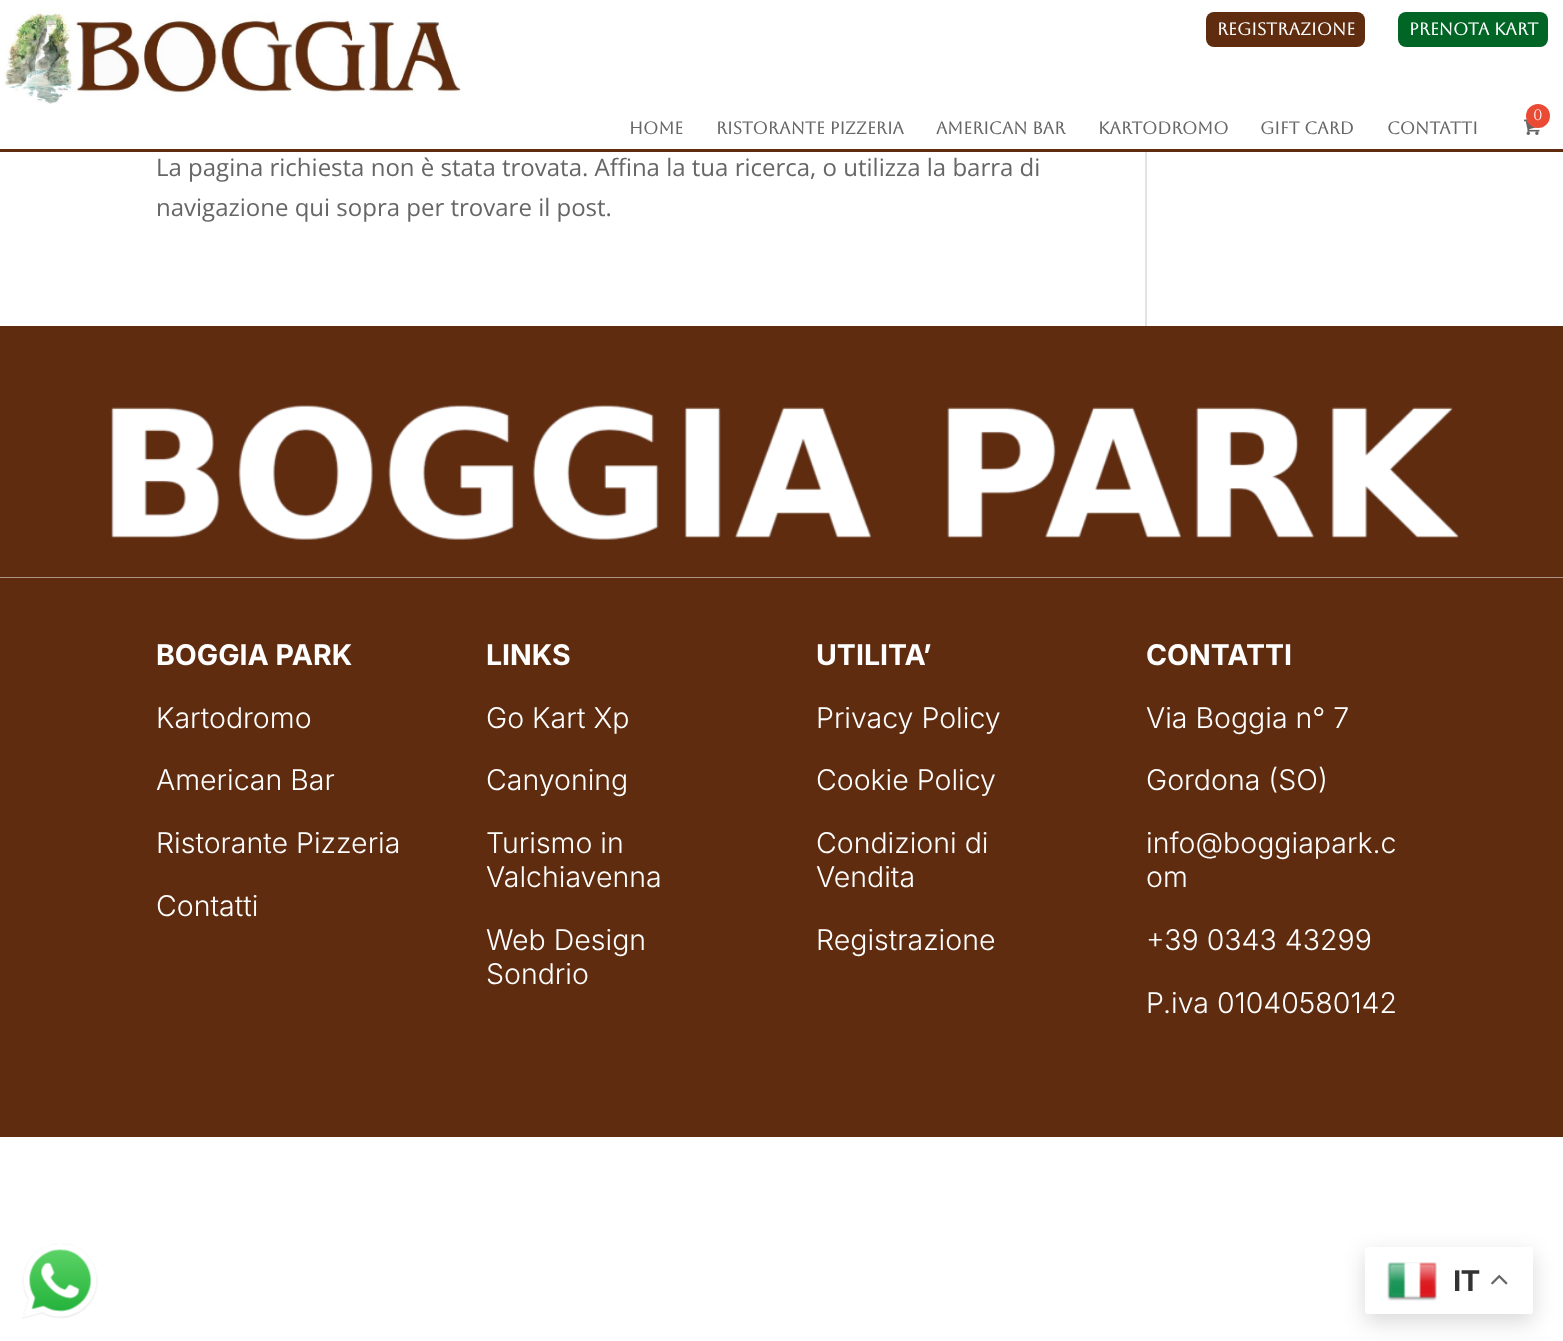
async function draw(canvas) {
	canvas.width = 1563;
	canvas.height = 1341;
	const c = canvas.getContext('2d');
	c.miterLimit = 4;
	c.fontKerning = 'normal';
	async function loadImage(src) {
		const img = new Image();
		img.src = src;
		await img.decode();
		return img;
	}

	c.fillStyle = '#fff';
	c.fillRect(0, 0, 1563, 1341);
	c.fillStyle = '#5f2c0f';
	c.fillRect(0, 149, 1563, 3);
	c.drawImage(await loadImage('img1.png'), 4, 8, 459, 96);
	c.beginPath();
	c.roundRect(1206, 12, 159, 35, 8);
	c.fill();
	c.font = 'bold 17.25px Aboreto';
	c.fillStyle = '#fff';
	c.fillText('REGISTRAZIONE', 1217, 35);
	c.fillStyle = '#016525';
	c.beginPath();
	c.roundRect(1398, 12, 150, 35, 8);
	c.fill();
	c.fillStyle = '#fff';
	c.fillText('PRENOTA KART', 1409, 35);
	c.drawImage(await loadImage('img2.png'), 1524, 119, 16, 16);
	c.fillStyle = '#e94b35';
	c.beginPath();
	c.arc(1538, 116, 12, 0, 2 * Math.PI);
	c.fill();
	c.font = '15px Aboreto';
	c.fillStyle = '#fff';
	c.fillText('0', 1533, 120);
	c.font = 'bold 17.25px Aboreto';
	c.fillStyle = '#666';
	for (const [text, x, y] of [
		['Home', 629, 134],
		['Ristorante Pizzeria', 716, 134],
		['American Bar', 936, 134],
		['Kartodromo', 1098, 134],
		['Gift Card', 1260, 134],
		['Contatti', 1387, 134],
	]) {
		c.fillText(text, x, y);
	}
	c.font = '24px Open Sans';
	c.fillText('La pagina richiesta non è stata trovata. Affina la tua ricerca, o utilizza la barra di', 156, 176);
	c.fillText('navigazione qui sopra per trovare il post.', 156, 216);
	for (const [x, y, w, h, color] of [
		[1145, 152, 2, 174, '#e2e2e2'],
		[0, 326, 1563, 811, '#5f2c0f'],
		[0, 405, 1563, 173, '#fff'],
	]) {
		c.fillStyle = color;
		c.fillRect(x, y, w, h);
	}
	c.drawImage(await loadImage('img3.png'), 0, 374, 1563, 204);
	c.font = 'bold 28.5px Inter';
	c.fillText('BOGGIA PARK', 156, 665);
	c.font = '300 28.5px Inter';
	for (const [text, x, y] of [
		['Kartodromo', 156, 728],
		['American Bar', 156, 790],
		['Ristorante Pizzeria', 156, 853],
		['Contatti', 156, 916],
	]) {
		c.fillText(text, x, y);
	}
	c.font = 'bold 28.5px Inter';
	c.fillText('LINKS', 486, 665);
	c.font = '300 28.5px Inter';
	for (const [text, x, y] of [
		['Go Kart Xp', 486, 728],
		['Canyoning', 486, 790],
		['Turismo in', 486, 853],
		['Valchiavenna', 486, 887],
		['Web Design', 486, 950],
		['Sondrio', 486, 984],
	]) {
		c.fillText(text, x, y);
	}
	c.font = 'bold 28.5px Inter';
	c.fillText('UTILITA’', 816, 665);
	c.font = '300 28.5px Inter';
	for (const [text, x, y] of [
		['Privacy Policy', 816, 728],
		['Cookie Policy', 816, 790],
		['Condizioni di', 816, 853],
		['Vendita', 816, 887],
		['Registrazione', 816, 950],
	]) {
		c.fillText(text, x, y);
	}
	c.font = 'bold 28.5px Inter';
	c.fillText('CONTATTI', 1146, 665);
	c.font = '300 28.5px Inter';
	for (const [text, x, y] of [
		['Via Boggia n° 7', 1146, 728],
		['Gordona (SO)', 1146, 790],
		['info@boggiapark.c', 1146, 853],
		['om', 1146, 887],
		['+39 0343 43299', 1146, 950],
		['P.iva 01040580142', 1146, 1013],
	]) {
		c.fillText(text, x, y);
	}
	c.drawImage(await loadImage('img4.png'), 22, 1243, 76, 76);
	c.fillStyle = '#00000026';
	c.filter = 'blur(11px)';
	c.beginPath();
	c.roundRect(1365, 1254, 168, 68, 3);
	c.fill();
	c.filter = 'none';
	c.fillStyle = '#fff';
	c.beginPath();
	c.roundRect(1365, 1247, 168, 67, 3);
	c.fill();
	c.drawImage(await loadImage('img5.png'), 1387, 1262, 50, 39);
	c.font = 'bold 30px Liberation Sans';
	c.fillStyle = '#333';
	c.fillText('IT', 1453, 1291);
	c.drawImage(await loadImage('img6.png'), 1491, 1274, 17, 11);
}

draw(document.querySelector('canvas'));
